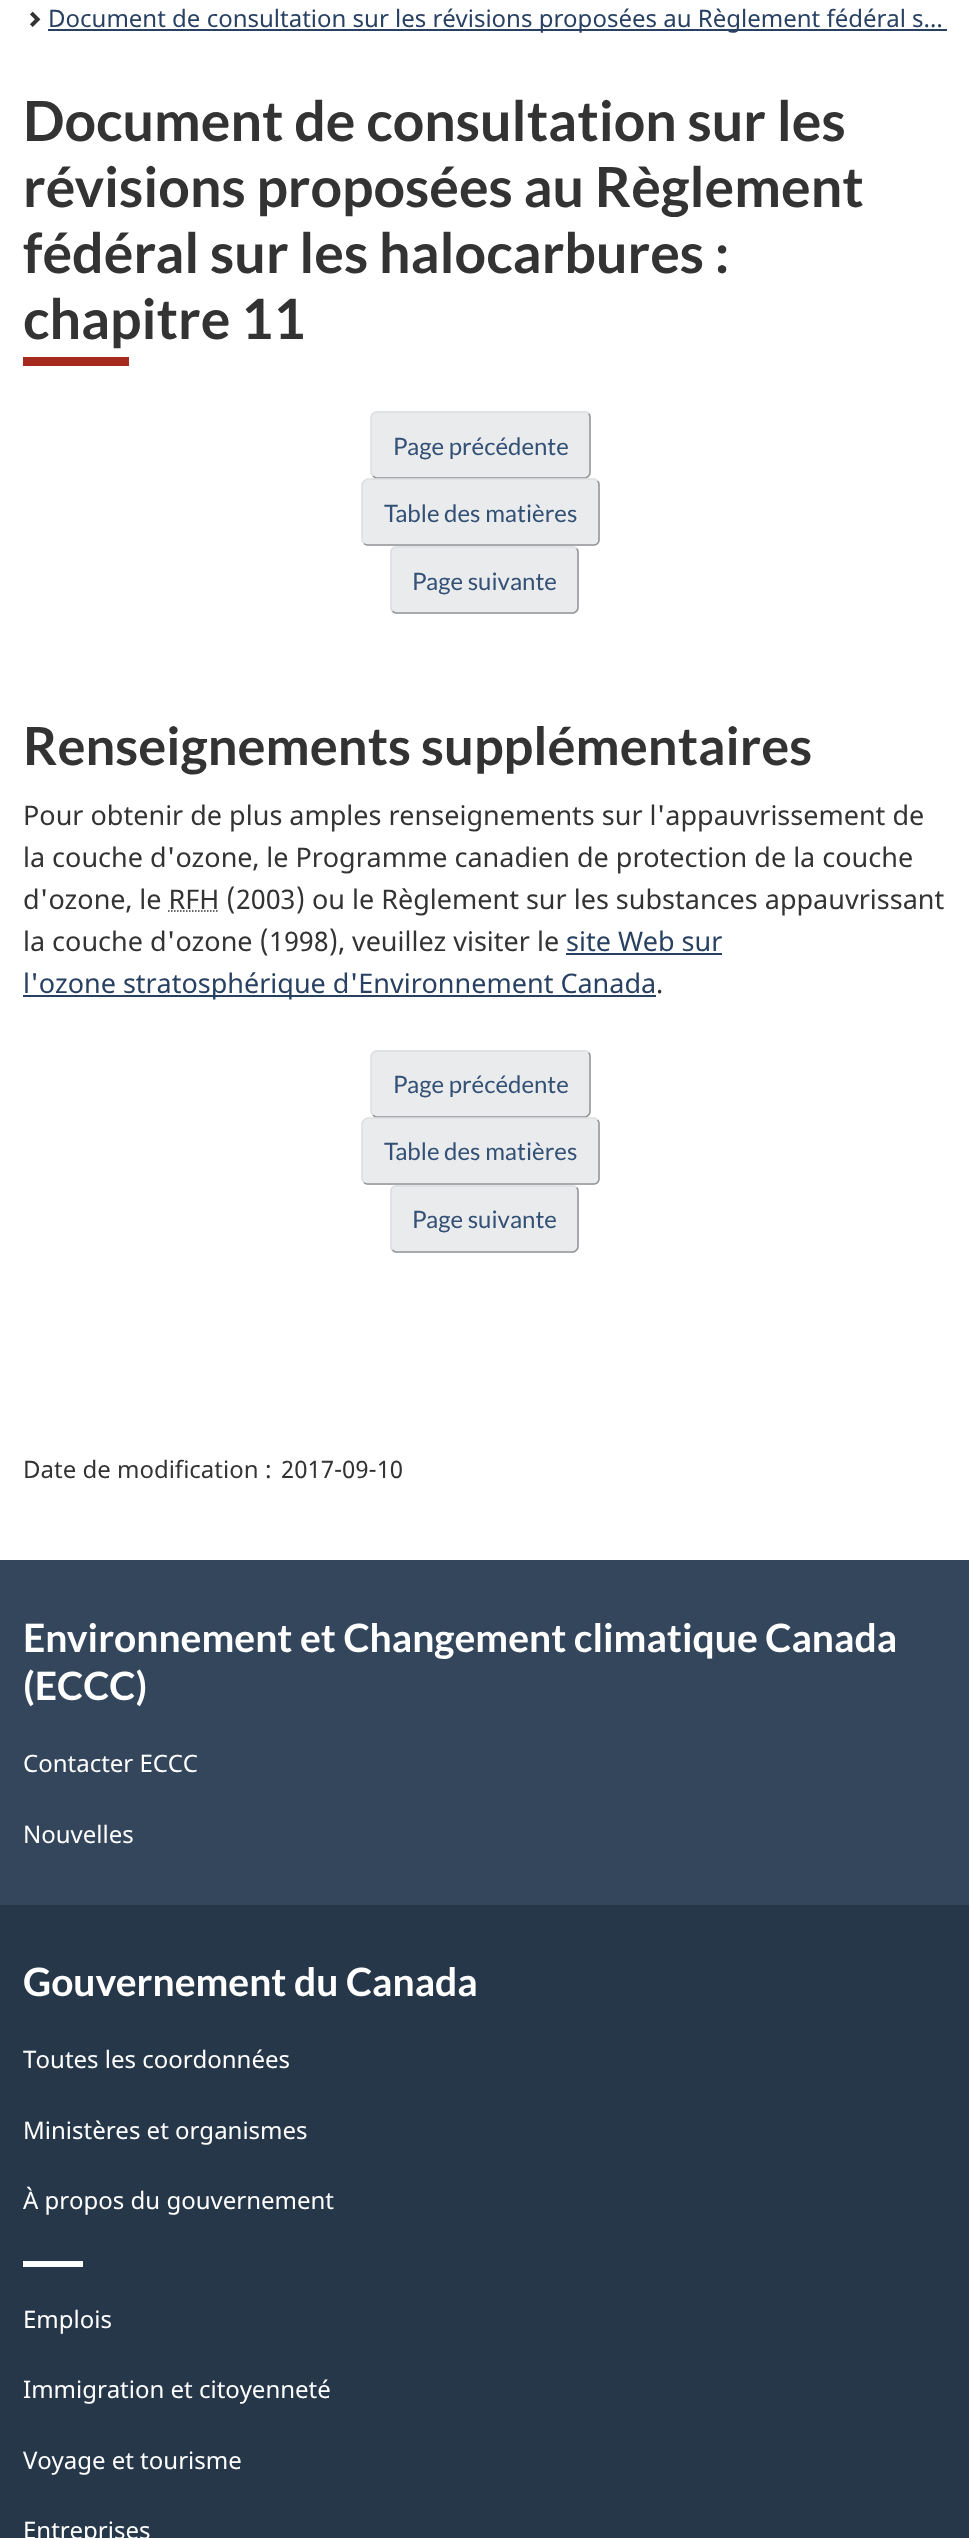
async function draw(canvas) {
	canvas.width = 969;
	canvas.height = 2538;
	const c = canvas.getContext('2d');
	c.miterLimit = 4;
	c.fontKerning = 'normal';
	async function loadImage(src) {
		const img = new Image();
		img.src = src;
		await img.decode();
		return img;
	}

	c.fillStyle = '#fff';
	c.fillRect(0, 0, 969, 2538);
	c.drawImage(await loadImage('img1.png'), 30, 11, 11, 16);
	c.fillStyle = '#284162';
	c.fillRect(48, 29, 899, 2);
	c.font = '24px Noto Sans';
	c.fillText('Document de consultation sur les révisions proposées au Règlement fédéral s…', 48, 27);
	c.fillStyle = '#a62a1e';
	c.fillRect(23, 357, 106, 9);
	c.font = 'bold 55.5px Lato';
	c.fillStyle = '#333';
	for (const [text, x, y] of [
		['Document de consultation sur les', 23, 141],
		['révisions proposées au Règlement', 23, 207],
		['fédéral sur les halocarbures :', 23, 273],
		['chapitre 11', 23, 339],
	]) {
		c.fillText(text, x, y);
	}
	c.fillStyle = '#eaebed';
	c.beginPath();
	c.roundRect(371, 411, 220, 68, 6);
	c.fill();
	c.beginPath();
	c.moveTo(588.5, 413.5);
	c.bezierCurveTo(589.5, 414.5, 590, 415.5, 590, 417);
	c.lineTo(590, 472.5);
	c.bezierCurveTo(590, 474, 589.5, 475, 588.5, 476);
	c.bezierCurveTo(587.5, 477, 586.5, 478, 585, 478);
	c.lineTo(376.5, 478);
	c.bezierCurveTo(375, 478, 374, 477, 373, 476);
	c.strokeStyle = '#939496';
	c.lineWidth = 1.5;
	c.stroke();
	c.beginPath();
	c.moveTo(373, 476);
	c.bezierCurveTo(372, 475, 371, 474, 371, 472.5);
	c.lineTo(371, 417);
	c.bezierCurveTo(371, 415.5, 372, 414.5, 373, 413.5);
	c.bezierCurveTo(374, 412.5, 375, 412, 376.5, 412);
	c.lineTo(585, 412);
	c.bezierCurveTo(586.5, 412, 587.5, 412.5, 588.5, 413.5);
	c.strokeStyle = '#dcdee1';
	c.stroke();
	c.font = '24px Lato';
	c.fillStyle = '#335075';
	c.fillText('Page précédente', 393, 455);
	c.fillStyle = '#eaebed';
	c.beginPath();
	c.roundRect(362, 479, 238, 67, 6);
	c.fill();
	c.beginPath();
	c.moveTo(597.5, 481);
	c.bezierCurveTo(598.5, 482, 599, 483, 599, 484.5);
	c.lineTo(599, 540);
	c.bezierCurveTo(599, 541.5, 598.5, 542.5, 597.5, 543.5);
	c.bezierCurveTo(596.5, 544.5, 595.5, 545, 594, 545);
	c.lineTo(367.5, 545);
	c.bezierCurveTo(366, 545, 365, 544.5, 364, 543.5);
	c.strokeStyle = '#939496';
	c.stroke();
	c.beginPath();
	c.moveTo(364, 543.5);
	c.bezierCurveTo(363, 542.5, 362, 541.5, 362, 540);
	c.lineTo(362, 484.5);
	c.bezierCurveTo(362, 483, 363, 482, 364, 481);
	c.bezierCurveTo(365, 480, 366, 479, 367.5, 479);
	c.lineTo(594, 479);
	c.bezierCurveTo(595.5, 479, 596.5, 480, 597.5, 481);
	c.strokeStyle = '#dcdee1';
	c.stroke();
	c.fillStyle = '#335075';
	c.fillText('Table des matières', 384, 522);
	c.fillStyle = '#eaebed';
	c.beginPath();
	c.roundRect(390, 546, 189, 68, 6);
	c.fill();
	c.beginPath();
	c.moveTo(576.5, 548.5);
	c.bezierCurveTo(577.5, 549.5, 578, 550.5, 578, 552);
	c.lineTo(578, 607.5);
	c.bezierCurveTo(578, 609, 577.5, 610, 576.5, 611);
	c.bezierCurveTo(575.5, 612, 574.5, 613, 573, 613);
	c.lineTo(396, 613);
	c.bezierCurveTo(394.5, 613, 393.5, 612, 392.5, 611);
	c.strokeStyle = '#939496';
	c.stroke();
	c.beginPath();
	c.moveTo(392.5, 611);
	c.bezierCurveTo(391.5, 610, 391, 609, 391, 607.5);
	c.lineTo(391, 552);
	c.bezierCurveTo(391, 550.5, 391.5, 549.5, 392.5, 548.5);
	c.bezierCurveTo(393.5, 547.5, 394.5, 547, 396, 547);
	c.lineTo(573, 547);
	c.bezierCurveTo(574.5, 547, 575.5, 547.5, 576.5, 548.5);
	c.strokeStyle = '#dcdee1';
	c.stroke();
	c.fillStyle = '#335075';
	c.fillText('Page suivante', 412, 590);
	c.font = 'bold 52.5px Lato';
	c.fillStyle = '#333';
	c.fillText('Renseignements supplémentaires', 23, 765);
	c.font = '27px Noto Sans';
	for (const [text, x, y] of [
		['Pour obtenir de plus amples renseignements sur l\'appauvrissement de', 23, 825],
		['la couche d\'ozone, le Programme canadien de protection de la couche', 23, 867],
		['d\'ozone, le RFH (2003) ou le Règlement sur les substances appauvrissant', 23, 909],
	]) {
		c.fillText(text, x, y);
	}
	c.beginPath();
	c.moveTo(168, 911);
	c.lineTo(219, 911);
	c.strokeStyle = '#333';
	c.setLineDash([1.5, 1.5]);
	c.stroke();
	c.fillText('la couche d\'ozone (1998), veuillez visiter le', 23, 951);
	c.fillStyle = '#284162';
	c.fillText('site Web sur', 566, 951);
	c.fillRect(566, 953, 156, 2);
	c.fillRect(23, 995, 633, 2);
	c.fillText('l\'ozone stratosphérique d\'Environnement Canada', 23, 993);
	c.fillStyle = '#333';
	c.fillText('.', 656, 993);
	c.fillStyle = '#eaebed';
	c.beginPath();
	c.roundRect(371, 1050, 220, 68, 6);
	c.fill();
	c.beginPath();
	c.moveTo(588.5, 1052.5);
	c.bezierCurveTo(589.5, 1053.5, 590, 1054.5, 590, 1056);
	c.lineTo(590, 1111.5);
	c.bezierCurveTo(590, 1113, 589.5, 1114, 588.5, 1115);
	c.bezierCurveTo(587.5, 1116, 586.5, 1117, 585, 1117);
	c.lineTo(376.5, 1117);
	c.bezierCurveTo(375, 1117, 374, 1116, 373, 1115);
	c.strokeStyle = '#939496';
	c.setLineDash([]);
	c.stroke();
	c.beginPath();
	c.moveTo(373, 1115);
	c.bezierCurveTo(372, 1114, 371, 1113, 371, 1111.5);
	c.lineTo(371, 1056);
	c.bezierCurveTo(371, 1054.5, 372, 1053.5, 373, 1052.5);
	c.bezierCurveTo(374, 1051.5, 375, 1051, 376.5, 1051);
	c.lineTo(585, 1051);
	c.bezierCurveTo(586.5, 1051, 587.5, 1051.5, 588.5, 1052.5);
	c.strokeStyle = '#dcdee1';
	c.stroke();
	c.font = '24px Lato';
	c.fillStyle = '#335075';
	c.fillText('Page précédente', 393, 1093);
	c.fillStyle = '#eaebed';
	c.beginPath();
	c.roundRect(362, 1118, 238, 67, 6);
	c.fill();
	c.beginPath();
	c.moveTo(597.5, 1120);
	c.bezierCurveTo(598.5, 1121, 599, 1122, 599, 1123.5);
	c.lineTo(599, 1179);
	c.bezierCurveTo(599, 1180.5, 598.5, 1181.5, 597.5, 1182.5);
	c.bezierCurveTo(596.5, 1183.5, 595.5, 1184, 594, 1184);
	c.lineTo(367.5, 1184);
	c.bezierCurveTo(366, 1184, 365, 1183.5, 364, 1182.5);
	c.strokeStyle = '#939496';
	c.stroke();
	c.beginPath();
	c.moveTo(364, 1182.5);
	c.bezierCurveTo(363, 1181.5, 362, 1180.5, 362, 1179);
	c.lineTo(362, 1123.5);
	c.bezierCurveTo(362, 1122, 363, 1121, 364, 1120);
	c.bezierCurveTo(365, 1119, 366, 1118, 367.5, 1118);
	c.lineTo(594, 1118);
	c.bezierCurveTo(595.5, 1118, 596.5, 1119, 597.5, 1120);
	c.strokeStyle = '#dcdee1';
	c.stroke();
	c.fillStyle = '#335075';
	c.fillText('Table des matières', 384, 1160);
	c.fillStyle = '#eaebed';
	c.beginPath();
	c.roundRect(390, 1185, 189, 68, 6);
	c.fill();
	c.beginPath();
	c.moveTo(576.5, 1187.5);
	c.bezierCurveTo(577.5, 1188.5, 578, 1189.5, 578, 1191);
	c.lineTo(578, 1246.5);
	c.bezierCurveTo(578, 1248, 577.5, 1249, 576.5, 1250);
	c.bezierCurveTo(575.5, 1251, 574.5, 1252, 573, 1252);
	c.lineTo(396, 1252);
	c.bezierCurveTo(394.5, 1252, 393.5, 1251, 392.5, 1250);
	c.strokeStyle = '#939496';
	c.stroke();
	c.beginPath();
	c.moveTo(392.5, 1250);
	c.bezierCurveTo(391.5, 1249, 391, 1248, 391, 1246.5);
	c.lineTo(391, 1191);
	c.bezierCurveTo(391, 1189.5, 391.5, 1188.5, 392.5, 1187.5);
	c.bezierCurveTo(393.5, 1186.5, 394.5, 1186, 396, 1186);
	c.lineTo(573, 1186);
	c.bezierCurveTo(574.5, 1186, 575.5, 1186.5, 576.5, 1187.5);
	c.strokeStyle = '#dcdee1';
	c.stroke();
	c.fillStyle = '#335075';
	c.fillText('Page suivante', 412, 1228);
	c.font = '24px Noto Sans';
	c.fillStyle = '#333';
	c.fillText('Date de modification :', 23, 1478);
	c.fillText('2017-09-10', 281, 1478);
	c.fillStyle = '#33465c';
	c.fillRect(0, 1560, 969, 345);
	c.font = 'bold 39px Lato';
	c.fillStyle = '#fff';
	c.fillText('Environnement et Changement climatique Canada', 23, 1652);
	c.fillText('(ECCC)', 23, 1700);
	c.font = '24px Noto Sans';
	c.fillText('Contacter ECCC', 23, 1772);
	c.fillText('Nouvelles', 23, 1843);
	c.fillStyle = '#26374a';
	c.fillRect(0, 1905, 969, 633);
	c.font = 'bold 39px Lato';
	c.fillStyle = '#fff';
	c.fillText('Gouvernement du Canada', 23, 1996);
	c.font = '24px Noto Sans';
	for (const [text, x, y] of [
		['Toutes les coordonnées', 23, 2068],
		['Ministères et organismes', 23, 2139],
		['À propos du gouvernement', 23, 2209],
	]) {
		c.fillText(text, x, y);
	}
	c.fillRect(23, 2261, 60, 6);
	for (const [text, x, y] of [
		['Emplois', 23, 2328],
		['Immigration et citoyenneté', 23, 2398],
		['Voyage et tourisme', 23, 2469],
		['Entreprises', 23, 2539],
	]) {
		c.fillText(text, x, y);
	}
}

draw(document.querySelector('canvas'));
